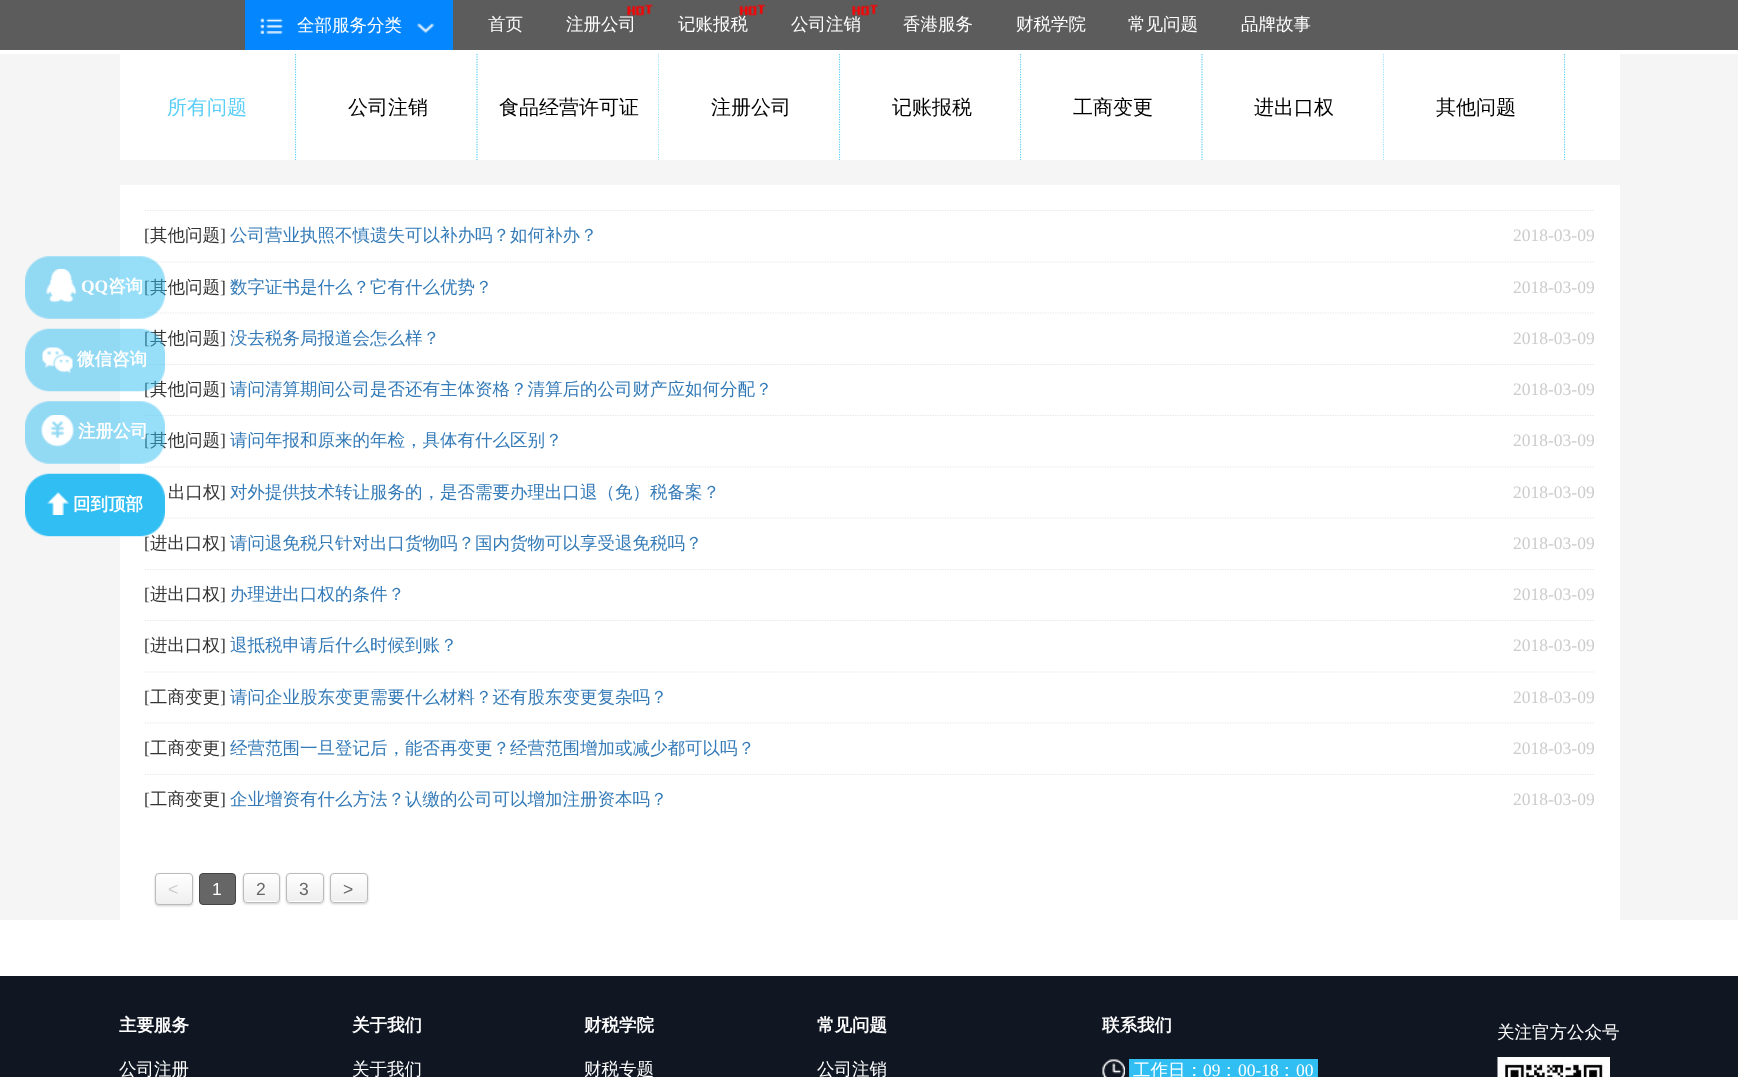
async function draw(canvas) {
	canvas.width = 1738;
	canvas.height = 1077;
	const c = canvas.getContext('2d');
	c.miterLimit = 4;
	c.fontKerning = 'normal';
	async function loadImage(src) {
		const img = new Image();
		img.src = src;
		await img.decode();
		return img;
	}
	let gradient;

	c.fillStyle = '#fff';
	c.fillRect(0, 0, 1738, 1077);
	c.fillStyle = '#5c5c5c';
	c.fillRect(0, 0, 1738, 50);
	c.fillStyle = '#0486ff';
	c.fillRect(245, 0, 208, 50);
	c.drawImage(await loadImage('img1.png'), 260, 18, 23, 16);
	c.font = '500 17.5px WenQuanYi Zen Hei';
	c.fillStyle = '#fff';
	c.fillText('全部服务分类', 297, 31);
	c.drawImage(await loadImage('img2.png'), 417, 23, 18, 10);
	c.fillText('首页', 488, 30);
	c.fillText('注册公司', 566, 30);
	c.drawImage(await loadImage('img3.png'), 627, 4, 27, 12);
	c.fillText('记账报税', 678, 30);
	c.drawImage(await loadImage('img4.png'), 739, 4, 27, 12);
	c.fillText('公司注销', 791, 30);
	c.drawImage(await loadImage('img5.png'), 852, 4, 27, 12);
	for (const [text, x, y] of [
		['香港服务', 903, 30],
		['财税学院', 1016, 30],
		['常见问题', 1128, 30],
		['品牌故事', 1241, 30],
	]) {
		c.fillText(text, x, y);
	}
	c.fillStyle = '#f5f5f5';
	c.fillRect(0, 54, 1738, 866);
	c.fillStyle = '#fff';
	c.fillRect(120, 185, 1500, 735);
	c.beginPath();
	c.moveTo(145, 262);
	c.lineTo(1595, 262);
	c.strokeStyle = '#e6e6e6';
	c.lineWidth = 1.2;
	c.setLineDash([1.25, 1.25]);
	c.stroke();
	c.font = '17.5px Liberation Serif';
	c.fillStyle = '#333';
	c.fillText('[', 144, 293);
	c.font = '500 17.5px WenQuanYi Zen Hei';
	c.fillText('其他问题', 150, 293);
	c.beginPath();
	c.moveTo(145, 313);
	c.lineTo(1595, 313);
	c.stroke();
	c.drawImage(await loadImage('img6.png'), 25, 256, 140, 63);
	c.drawImage(await loadImage('img7.png'), 46, 268, 31, 35);
	c.font = 'bold 17.5px Liberation Serif';
	c.fillStyle = '#fff';
	c.fillText('QQ', 81, 292);
	c.font = 'bold 17.5px WenQuanYi Zen Hei';
	c.fillText('咨询', 108, 292);
	c.font = '17.5px Liberation Serif';
	c.fillStyle = '#333';
	c.fillText('[', 144, 344);
	c.font = '500 17.5px WenQuanYi Zen Hei';
	c.fillText('其他问题', 150, 344);
	c.beginPath();
	c.moveTo(145, 364.5);
	c.lineTo(1595, 364.5);
	c.stroke();
	c.font = '17.5px Liberation Serif';
	c.fillText('[', 144, 395);
	c.font = '500 17.5px WenQuanYi Zen Hei';
	c.fillText('其他问题', 150, 395);
	c.drawImage(await loadImage('img8.png'), 25, 328, 140, 64);
	c.drawImage(await loadImage('img9.png'), 42, 347, 31, 26);
	c.font = 'bold 17.5px WenQuanYi Zen Hei';
	c.fillStyle = '#fff';
	c.fillText('微信咨询', 77, 365);
	c.beginPath();
	c.moveTo(145, 415.5);
	c.lineTo(1595, 415.5);
	c.stroke();
	c.font = '17.5px Liberation Serif';
	c.fillStyle = '#333';
	c.fillText('[', 144, 446);
	c.font = '500 17.5px WenQuanYi Zen Hei';
	c.fillText('其他问题', 150, 446);
	c.drawImage(await loadImage('img10.png'), 25, 401, 140, 63);
	c.drawImage(await loadImage('img11.png'), 41, 415, 33, 32);
	c.font = 'bold 17.5px WenQuanYi Zen Hei';
	c.fillStyle = '#fff';
	c.fillText('注册公司', 78, 437);
	c.beginPath();
	c.moveTo(145, 518);
	c.lineTo(1595, 518);
	c.stroke();
	c.font = '17.5px Liberation Serif';
	c.fillStyle = '#333';
	c.fillText('[', 144, 549);
	c.font = '500 17.5px WenQuanYi Zen Hei';
	c.fillText('进出口权', 150, 549);
	c.drawImage(await loadImage('img12.png'), 25, 473, 140, 64);
	c.drawImage(await loadImage('img13.png'), 47, 492, 22, 23);
	c.font = 'bold 17.5px WenQuanYi Zen Hei';
	c.fillStyle = '#fff';
	c.fillText('回到顶部', 73, 510);
	c.fillRect(295, 54, 1325, 106);
	c.beginPath();
	c.moveTo(295.5, 54);
	c.lineTo(295.5, 160);
	c.strokeStyle = '#5bcef8';
	c.stroke();
	c.fillRect(120, 54, 175, 106);
	c.font = '500 20px WenQuanYi Zen Hei';
	c.fillStyle = '#5bcef8';
	c.fillText('所有问题', 167, 114);
	c.beginPath();
	c.moveTo(477, 54);
	c.lineTo(477, 160);
	c.stroke();
	c.fillStyle = '#000';
	c.fillText('公司注销', 348, 114);
	c.beginPath();
	c.moveTo(658, 54);
	c.lineTo(658, 160);
	c.stroke();
	c.fillStyle = '#fff';
	c.fillRect(657, 54, 1, 106);
	c.fillStyle = '#000';
	c.fillText('食品经营许可证', 499, 114);
	c.beginPath();
	c.moveTo(839.5, 54);
	c.lineTo(839.5, 160);
	c.stroke();
	c.fillStyle = '#fff';
	c.fillRect(838, 54, 1, 106);
	c.fillStyle = '#000';
	c.fillText('注册公司', 711, 114);
	c.beginPath();
	c.moveTo(1020.5, 54);
	c.lineTo(1020.5, 160);
	c.stroke();
	c.fillStyle = '#fff';
	c.fillRect(1019, 54, 1, 106);
	c.fillStyle = '#000';
	c.fillText('记账报税', 892, 114);
	c.beginPath();
	c.moveTo(1202, 54);
	c.lineTo(1202, 160);
	c.stroke();
	c.fillText('工商变更', 1073, 114);
	c.beginPath();
	c.moveTo(1383, 54);
	c.lineTo(1383, 160);
	c.stroke();
	c.fillStyle = '#fff';
	c.fillRect(1382, 54, 1, 106);
	c.fillStyle = '#000';
	c.fillText('进出口权', 1254, 114);
	c.beginPath();
	c.moveTo(1564.5, 54);
	c.lineTo(1564.5, 160);
	c.stroke();
	c.fillStyle = '#fff';
	c.fillRect(1563, 54, 1, 106);
	c.fillStyle = '#000';
	c.fillText('其他问题', 1436, 114);
	c.beginPath();
	c.moveTo(145, 210.5);
	c.lineTo(1595, 210.5);
	c.strokeStyle = '#e6e6e6';
	c.stroke();
	c.font = '17.5px Liberation Serif';
	c.fillStyle = '#333';
	c.fillText('[', 144, 241);
	c.font = '500 17.5px WenQuanYi Zen Hei';
	c.fillText('其他问题', 150, 241);
	c.font = '17.5px Liberation Serif';
	c.fillText(']', 220, 241);
	c.font = '500 17.5px WenQuanYi Zen Hei';
	c.fillStyle = '#337ab7';
	c.fillText('公司营业执照不慎遗失可以补办吗？如何补办？', 230, 241);
	c.font = '17.5px Liberation Serif';
	c.fillStyle = '#ccc';
	c.fillText('2018-03-09', 1513, 241);
	c.fillStyle = '#333';
	c.fillText(']', 220, 293);
	c.font = '500 17.5px WenQuanYi Zen Hei';
	c.fillStyle = '#337ab7';
	c.fillText('数字证书是什么？它有什么优势？', 230, 293);
	c.font = '17.5px Liberation Serif';
	c.fillStyle = '#ccc';
	c.fillText('2018-03-09', 1513, 293);
	c.fillStyle = '#333';
	c.fillText(']', 220, 344);
	c.font = '500 17.5px WenQuanYi Zen Hei';
	c.fillStyle = '#337ab7';
	c.fillText('没去税务局报道会怎么样？', 230, 344);
	c.font = '17.5px Liberation Serif';
	c.fillStyle = '#ccc';
	c.fillText('2018-03-09', 1513, 344);
	c.fillStyle = '#333';
	c.fillText(']', 220, 395);
	c.font = '500 17.5px WenQuanYi Zen Hei';
	c.fillStyle = '#337ab7';
	c.fillText('请问清算期间公司是否还有主体资格？清算后的公司财产应如何分配？', 230, 395);
	c.font = '17.5px Liberation Serif';
	c.fillStyle = '#ccc';
	c.fillText('2018-03-09', 1513, 395);
	c.fillStyle = '#333';
	c.fillText(']', 220, 446);
	c.font = '500 17.5px WenQuanYi Zen Hei';
	c.fillStyle = '#337ab7';
	c.fillText('请问年报和原来的年检，具体有什么区别？', 230, 446);
	c.font = '17.5px Liberation Serif';
	c.fillStyle = '#ccc';
	c.fillText('2018-03-09', 1513, 446);
	c.beginPath();
	c.moveTo(145, 467);
	c.lineTo(1595, 467);
	c.stroke();
	c.font = '500 17.5px WenQuanYi Zen Hei';
	c.fillStyle = '#333';
	c.fillText('出口权', 168, 498);
	c.font = '17.5px Liberation Serif';
	c.fillText(']', 220, 498);
	c.font = '500 17.5px WenQuanYi Zen Hei';
	c.fillStyle = '#337ab7';
	c.fillText('对外提供技术转让服务的，是否需要办理出口退（免）税备案？', 230, 498);
	c.font = '17.5px Liberation Serif';
	c.fillStyle = '#ccc';
	c.fillText('2018-03-09', 1513, 498);
	c.fillStyle = '#333';
	c.fillText(']', 220, 549);
	c.font = '500 17.5px WenQuanYi Zen Hei';
	c.fillStyle = '#337ab7';
	c.fillText('请问退免税只针对出口货物吗？国内货物可以享受退免税吗？', 230, 549);
	c.font = '17.5px Liberation Serif';
	c.fillStyle = '#ccc';
	c.fillText('2018-03-09', 1513, 549);
	c.beginPath();
	c.moveTo(145, 569.5);
	c.lineTo(1595, 569.5);
	c.stroke();
	c.fillStyle = '#333';
	c.fillText('[', 144, 600);
	c.font = '500 17.5px WenQuanYi Zen Hei';
	c.fillText('进出口权', 150, 600);
	c.font = '17.5px Liberation Serif';
	c.fillText(']', 220, 600);
	c.font = '500 17.5px WenQuanYi Zen Hei';
	c.fillStyle = '#337ab7';
	c.fillText('办理进出口权的条件？', 230, 600);
	c.font = '17.5px Liberation Serif';
	c.fillStyle = '#ccc';
	c.fillText('2018-03-09', 1513, 600);
	c.beginPath();
	c.moveTo(145, 620.5);
	c.lineTo(1595, 620.5);
	c.stroke();
	c.fillStyle = '#333';
	c.fillText('[', 144, 651);
	c.font = '500 17.5px WenQuanYi Zen Hei';
	c.fillText('进出口权', 150, 651);
	c.font = '17.5px Liberation Serif';
	c.fillText(']', 220, 651);
	c.font = '500 17.5px WenQuanYi Zen Hei';
	c.fillStyle = '#337ab7';
	c.fillText('退抵税申请后什么时候到账？', 230, 651);
	c.font = '17.5px Liberation Serif';
	c.fillStyle = '#ccc';
	c.fillText('2018-03-09', 1513, 651);
	c.beginPath();
	c.moveTo(145, 672);
	c.lineTo(1595, 672);
	c.stroke();
	c.fillStyle = '#333';
	c.fillText('[', 144, 703);
	c.font = '500 17.5px WenQuanYi Zen Hei';
	c.fillText('工商变更', 150, 703);
	c.font = '17.5px Liberation Serif';
	c.fillText(']', 220, 703);
	c.font = '500 17.5px WenQuanYi Zen Hei';
	c.fillStyle = '#337ab7';
	c.fillText('请问企业股东变更需要什么材料？还有股东变更复杂吗？', 230, 703);
	c.font = '17.5px Liberation Serif';
	c.fillStyle = '#ccc';
	c.fillText('2018-03-09', 1513, 703);
	c.beginPath();
	c.moveTo(145, 723);
	c.lineTo(1595, 723);
	c.stroke();
	c.fillStyle = '#333';
	c.fillText('[', 144, 754);
	c.font = '500 17.5px WenQuanYi Zen Hei';
	c.fillText('工商变更', 150, 754);
	c.font = '17.5px Liberation Serif';
	c.fillText(']', 220, 754);
	c.font = '500 17.5px WenQuanYi Zen Hei';
	c.fillStyle = '#337ab7';
	c.fillText('经营范围一旦登记后，能否再变更？经营范围增加或减少都可以吗？', 230, 754);
	c.font = '17.5px Liberation Serif';
	c.fillStyle = '#ccc';
	c.fillText('2018-03-09', 1513, 754);
	c.beginPath();
	c.moveTo(145, 774.5);
	c.lineTo(1595, 774.5);
	c.stroke();
	c.fillStyle = '#333';
	c.fillText('[', 144, 805);
	c.font = '500 17.5px WenQuanYi Zen Hei';
	c.fillText('工商变更', 150, 805);
	c.font = '17.5px Liberation Serif';
	c.fillText(']', 220, 805);
	c.font = '500 17.5px WenQuanYi Zen Hei';
	c.fillStyle = '#337ab7';
	c.fillText('企业增资有什么方法？认缴的公司可以增加注册资本吗？', 230, 805);
	c.font = '17.5px Liberation Serif';
	c.fillStyle = '#ccc';
	c.fillText('2018-03-09', 1513, 805);
	c.fillStyle = '#00000033';
	c.filter = 'blur(1px)';
	c.beginPath();
	c.roundRect(155, 874, 38, 32, 4);
	c.fill();
	c.filter = 'none';
	c.save();
	c.beginPath();
	c.roundRect(155, 873, 38, 32, 4);
	c.clip();
	gradient = c.createLinearGradient(174, 874, 174, 904);
	gradient.addColorStop(0, '#fff');
	gradient.addColorStop(1, '#efefef');
	c.fillStyle = gradient;
	c.fillRect(155, 874, 38, 30);
	c.restore();
	c.beginPath();
	c.roundRect(155.5, 873.5, 37, 31, 3.5);
	c.strokeStyle = '#bbb';
	c.lineWidth = 1;
	c.setLineDash([]);
	c.stroke();
	c.font = '17.5px Liberation Sans';
	c.fillStyle = '#ccc';
	c.fillText('<', 168, 895);
	c.fillStyle = '#666';
	c.beginPath();
	c.roundRect(199.5, 873.5, 36, 31, 3.5);
	c.fill();
	c.strokeStyle = '#444';
	c.stroke();
	c.fillStyle = '#fff';
	c.fillText('1', 212, 895);
	c.fillStyle = '#00000033';
	c.filter = 'blur(1px)';
	c.beginPath();
	c.roundRect(243, 874, 37, 30, 4);
	c.fill();
	c.filter = 'none';
	c.save();
	c.beginPath();
	c.roundRect(243, 873, 37, 30, 4);
	c.clip();
	gradient = c.createLinearGradient(261, 874, 261, 901);
	gradient.addColorStop(0, '#fff');
	gradient.addColorStop(1, '#efefef');
	c.fillStyle = gradient;
	c.fillRect(243, 874, 37, 27);
	gradient = c.createLinearGradient(261, 901, 261, 929);
	gradient.addColorStop(0, '#fff');
	gradient.addColorStop(1, '#efefef');
	c.fillStyle = gradient;
	c.fillRect(243, 901, 37, 2);
	c.restore();
	c.beginPath();
	c.roundRect(243.5, 873.5, 36, 29, 3.5);
	c.strokeStyle = '#bbb';
	c.stroke();
	c.fillStyle = '#666';
	c.fillText('2', 256, 895);
	c.fillStyle = '#00000033';
	c.filter = 'blur(1px)';
	c.beginPath();
	c.roundRect(286, 874, 38, 30, 4);
	c.fill();
	c.filter = 'none';
	c.save();
	c.beginPath();
	c.roundRect(286, 873, 38, 30, 4);
	c.clip();
	gradient = c.createLinearGradient(305, 874, 305, 901);
	gradient.addColorStop(0, '#fff');
	gradient.addColorStop(1, '#efefef');
	c.fillStyle = gradient;
	c.fillRect(286, 874, 38, 27);
	gradient = c.createLinearGradient(305, 901, 305, 929);
	gradient.addColorStop(0, '#fff');
	gradient.addColorStop(1, '#efefef');
	c.fillStyle = gradient;
	c.fillRect(286, 901, 38, 2);
	c.restore();
	c.beginPath();
	c.roundRect(286.5, 873.5, 37, 29, 3.5);
	c.stroke();
	c.fillStyle = '#666';
	c.fillText('3', 299, 895);
	c.fillStyle = '#00000033';
	c.filter = 'blur(1px)';
	c.beginPath();
	c.roundRect(330, 874, 38, 30, 4);
	c.fill();
	c.filter = 'none';
	c.save();
	c.beginPath();
	c.roundRect(330, 873, 38, 30, 4);
	c.clip();
	gradient = c.createLinearGradient(349, 874, 349, 901);
	gradient.addColorStop(0, '#fff');
	gradient.addColorStop(1, '#efefef');
	c.fillStyle = gradient;
	c.fillRect(330, 874, 38, 27);
	gradient = c.createLinearGradient(349, 901, 349, 929);
	gradient.addColorStop(0, '#fff');
	gradient.addColorStop(1, '#efefef');
	c.fillStyle = gradient;
	c.fillRect(330, 901, 38, 2);
	c.restore();
	c.beginPath();
	c.roundRect(330.5, 873.5, 37, 29, 3.5);
	c.stroke();
	c.fillStyle = '#666';
	c.fillText('>', 343, 895);
	c.fillStyle = '#101723';
	c.fillRect(0, 976, 1738, 101);
	c.font = 'bold 17.5px WenQuanYi Zen Hei';
	c.fillStyle = '#fff';
	c.fillText('主要服务', 119, 1031);
	c.font = '500 17.5px WenQuanYi Zen Hei';
	c.fillText('公司注册', 119, 1075);
	c.font = 'bold 17.5px WenQuanYi Zen Hei';
	c.fillText('关于我们', 352, 1031);
	c.font = '500 17.5px WenQuanYi Zen Hei';
	c.fillText('关于我们', 352, 1075);
	c.font = 'bold 17.5px WenQuanYi Zen Hei';
	c.fillText('财税学院', 584, 1031);
	c.font = '500 17.5px WenQuanYi Zen Hei';
	c.fillText('财税专题', 584, 1075);
	c.font = 'bold 17.5px WenQuanYi Zen Hei';
	c.fillText('常见问题', 817, 1031);
	c.font = '500 17.5px WenQuanYi Zen Hei';
	c.fillText('公司注销', 817, 1075);
	c.font = 'bold 17.5px WenQuanYi Zen Hei';
	c.fillText('联系我们', 1102, 1031);
	c.drawImage(await loadImage('img14.png'), 1102, 1059, 23, 18);
	c.fillStyle = '#30bef3';
	c.fillRect(1129, 1059, 189, 18);
	c.font = '500 17.5px WenQuanYi Zen Hei';
	c.fillStyle = '#fff';
	c.fillText('工作日：', 1133, 1076);
	c.font = '17.5px Liberation Serif';
	c.fillText('09', 1203, 1076);
	c.font = '500 17.5px WenQuanYi Zen Hei';
	c.fillText('：', 1220, 1076);
	c.font = '17.5px Liberation Serif';
	c.fillText('00-18', 1238, 1076);
	c.font = '500 17.5px WenQuanYi Zen Hei';
	c.fillText('：', 1278, 1076);
	c.font = '17.5px Liberation Serif';
	c.fillText('00', 1296, 1076);
	c.font = '500 17.5px WenQuanYi Zen Hei';
	c.fillText('关注官方公众号', 1497, 1038);
	c.drawImage(await loadImage('img15.png'), 1497, 1057, 113, 20);
}

draw(document.querySelector('canvas'));
